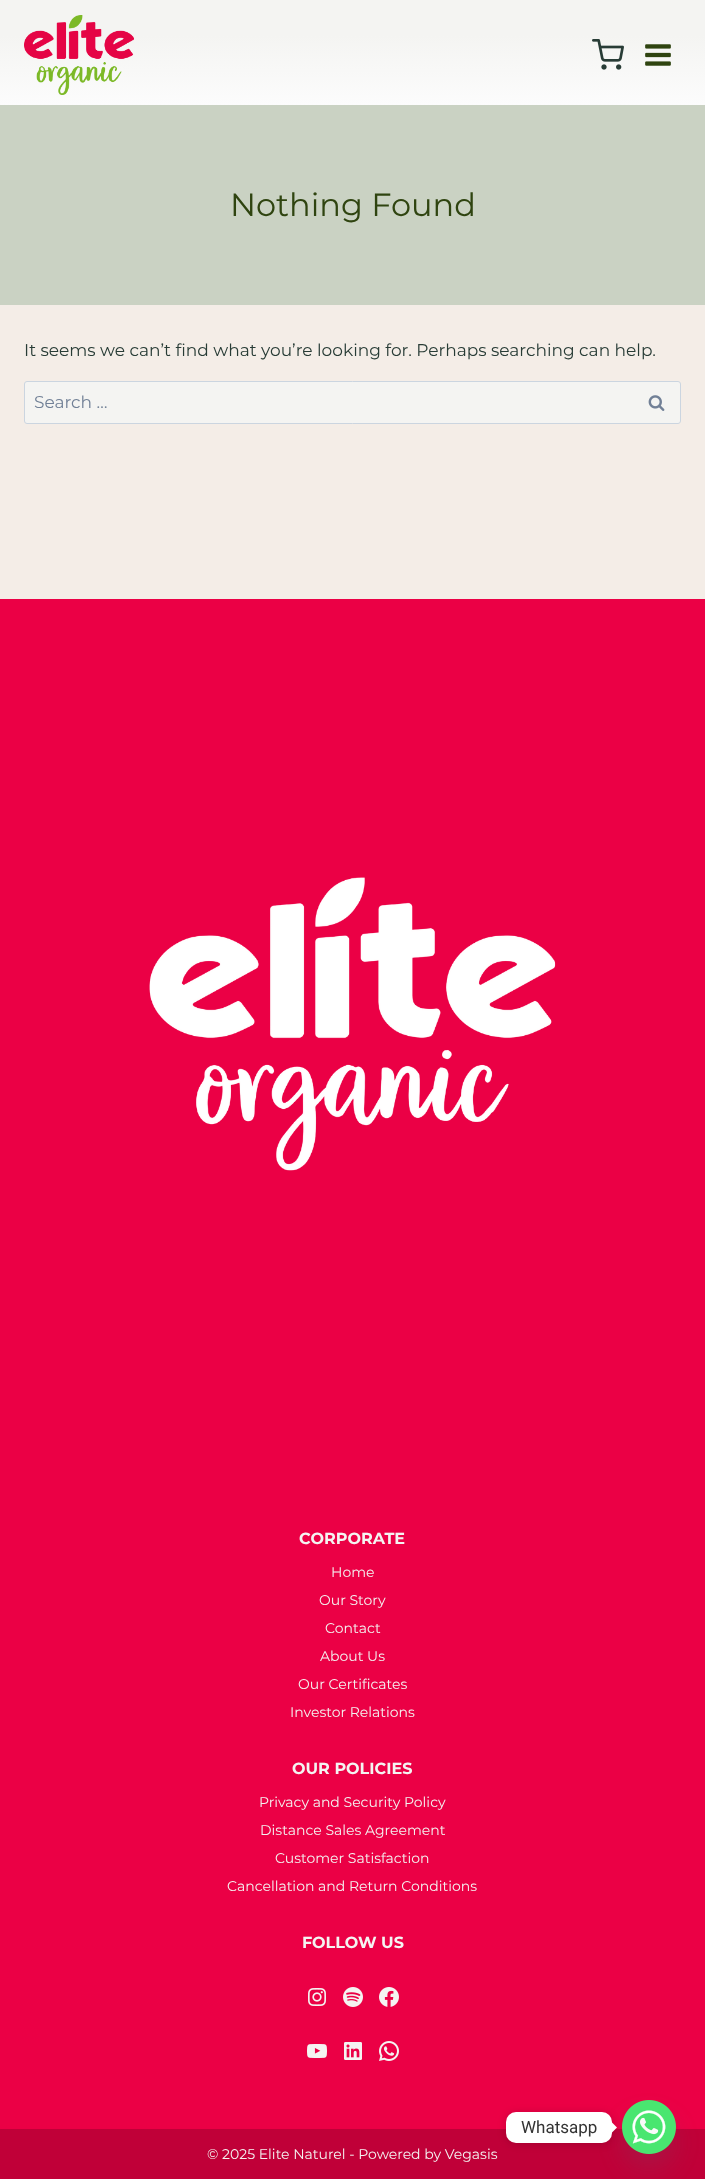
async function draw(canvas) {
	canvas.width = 705;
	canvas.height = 2179;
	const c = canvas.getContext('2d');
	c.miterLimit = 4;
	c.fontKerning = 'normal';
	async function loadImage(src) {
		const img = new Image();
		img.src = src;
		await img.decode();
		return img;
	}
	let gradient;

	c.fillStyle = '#f4ede7';
	c.fillRect(0, 0, 705, 2179);
	gradient = c.createLinearGradient(353, 0, 353, 105);
	gradient.addColorStop(0.34, '#f4f4f2');
	gradient.addColorStop(1, '#fcfcfc');
	c.fillStyle = gradient;
	c.fillRect(0, 0, 705, 105);
	c.drawImage(await loadImage('img1.png'), 24, 15, 110, 80);
	c.drawImage(await loadImage('img2.png'), 592, 39, 32, 31);
	c.drawImage(await loadImage('img3.png'), 645, 44, 26, 22);
	c.fillStyle = '#cad2c3';
	c.fillRect(0, 105, 705, 200);
	c.font = '32px Montserrat';
	c.fillStyle = '#2f4410';
	c.fillText('Nothing Found', 230, 216);
	c.font = '17px Montserrat';
	c.fillStyle = '#283c36';
	c.fillText('It seems we can’t find what you’re looking for. Perhaps searching can help.', 24, 356);
	c.fillStyle = '#f4f4f2';
	c.beginPath();
	c.roundRect(24.5, 381.5, 656, 42, 2.5);
	c.fill();
	c.strokeStyle = '#cbd5e0';
	c.stroke();
	c.fillStyle = '#718096';
	c.fillText('Search …', 34, 408);
	c.drawImage(await loadImage('img4.png'), 648, 395, 17, 16);
	c.fillStyle = '#eb0045';
	c.fillRect(0, 599, 705, 1530);
	c.drawImage(await loadImage('img5.png'), 149, 877, 407, 294);
	c.font = 'bold 16px Montserrat';
	c.fillStyle = '#f4f4f2';
	c.fillText('CORPORATE', 299, 1544);
	c.font = '14px Montserrat';
	for (const [text, x, y] of [
		['Home', 331, 1577],
		['Our Story', 319, 1605],
		['Contact', 325, 1633],
		['About Us', 320, 1661],
		['Our Certificates', 298, 1689],
		['Investor Relations', 290, 1717],
	]) {
		c.fillText(text, x, y);
	}
	c.font = 'bold 16px Montserrat';
	c.fillText('OUR POLICIES', 292, 1774);
	c.font = '14px Montserrat';
	for (const [text, x, y] of [
		['Privacy and Security Policy', 259, 1807],
		['Distance Sales Agreement', 260, 1835],
		['Customer Satisfaction', 275, 1863],
		['Cancellation and Return Conditions', 227, 1891],
	]) {
		c.fillText(text, x, y);
	}
	c.font = 'bold 16px Montserrat';
	c.fillText('FOLLOW US', 302, 1948);
	c.drawImage(await loadImage('img6.png'), 308, 1988, 18, 18);
	c.drawImage(await loadImage('img7.png'), 343, 1987, 20, 20);
	c.drawImage(await loadImage('img8.png'), 379, 1987, 20, 20);
	c.drawImage(await loadImage('img9.png'), 307, 2044, 20, 14);
	c.drawImage(await loadImage('img10.png'), 344, 2042, 18, 18);
	c.drawImage(await loadImage('img11.png'), 379, 2041, 20, 20);
	c.fillStyle = '#c00038';
	c.fillRect(0, 2129, 705, 50);
	c.font = '14px Montserrat';
	c.fillStyle = '#f4f4f2';
	c.fillText('© 2025 Elite Naturel - Powered by Vegasis', 207, 2159);
	c.fillStyle = '#49687e29';
	c.filter = 'blur(12px)';
	c.beginPath();
	c.roundRect(622, 2116, 54, 54, 27);
	c.fill();
	c.filter = 'none';
	c.drawImage(await loadImage('img12.png'), 622, 2100, 54, 54);
	c.fillStyle = '#00000026';
	c.filter = 'blur(4px)';
	c.beginPath();
	c.roundRect(506, 2113, 106, 31, 10);
	c.fill();
	c.filter = 'none';
	c.fillStyle = '#fff';
	c.beginPath();
	c.roundRect(506, 2112, 106, 31, 10);
	c.fill();
	c.font = '17px Roboto';
	c.fillStyle = '#333';
	c.fillText('Whatsapp', 521, 2133);
	c.fillStyle = '#fff';
	c.beginPath();
	c.moveTo(612, 2132.5);
	c.lineTo(612, 2122.5);
	c.lineTo(617, 2127.5);
	c.closePath();
	c.fill();
}

draw(document.querySelector('canvas'));
